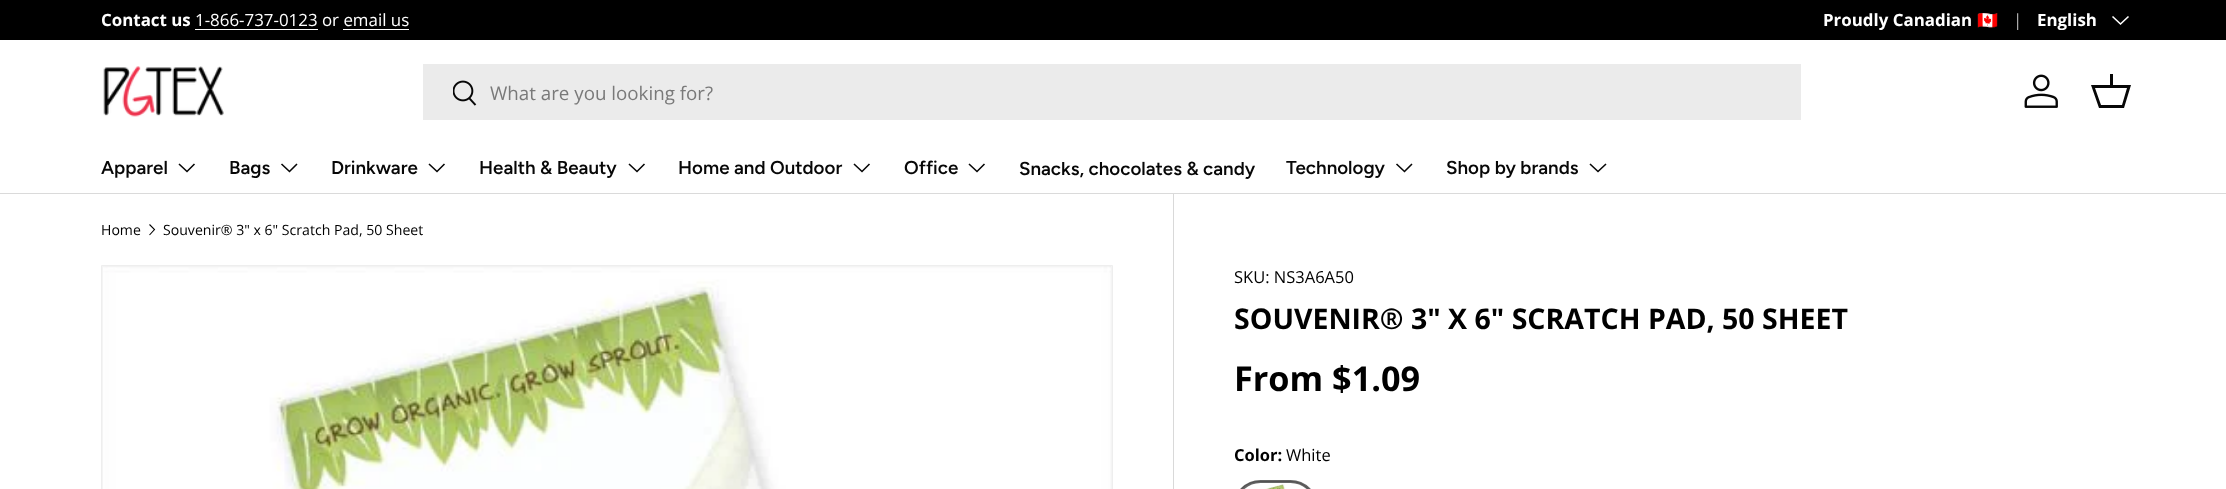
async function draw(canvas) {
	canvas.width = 2226;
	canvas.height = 489;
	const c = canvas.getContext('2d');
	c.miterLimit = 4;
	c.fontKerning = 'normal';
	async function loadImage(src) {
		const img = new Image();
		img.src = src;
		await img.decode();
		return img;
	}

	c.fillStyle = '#fff';
	c.fillRect(0, 0, 2226, 489);
	c.fillStyle = '#000';
	c.fillRect(0, 0, 2226, 40);
	c.font = 'bold 16.9px Open Sans';
	c.fillStyle = '#fff';
	c.fillText('Contact us', 101, 26);
	c.font = '16.9px Open Sans';
	c.fillText('1-866-737-0123 or email us', 195, 26);
	c.fillRect(195, 29, 123, 1);
	c.fillRect(343, 29, 66, 1);
	c.font = 'bold 16.9px Open Sans';
	c.fillText('Proudly Canadian', 1823, 26);
	c.font = 'bold 16.9px Noto Color Emoji';
	c.fillText('🇨🇦', 1977, 26);
	c.font = '16.9px Open Sans';
	c.fillStyle = '#b3b3b3';
	c.fillText('|', 2013, 26);
	c.font = 'bold 16.9px Open Sans';
	c.fillStyle = '#fff';
	c.fillText('English', 2037, 26);
	c.beginPath();
	c.moveTo(2128.5, 16.5);
	c.lineTo(2120.5, 24);
	c.lineTo(2112.5, 16.5);
	c.strokeStyle = '#fff';
	c.lineWidth = 1.6;
	c.stroke();
	c.fillStyle = '#dadada';
	c.fillRect(0, 193, 2226, 1);
	c.drawImage(await loadImage('img1.png'), 103, 66, 121, 51);
	c.fillStyle = '#ebebeb';
	c.fillRect(423, 64, 1378, 56);
	c.drawImage(await loadImage('img2.png'), 453, 80, 24, 26);
	c.font = '18.75px Open Sans';
	c.fillStyle = '#797979';
	c.fillText('What are you looking for?', 490, 100);
	c.drawImage(await loadImage('img3.png'), 2024, 74, 34, 34);
	c.fillStyle = '#070707';
	c.beginPath();
	c.moveTo(2110, 85);
	c.lineTo(2110, 74);
	c.lineTo(2113, 74);
	c.lineTo(2113, 85);
	c.lineTo(2131, 85);
	c.lineTo(2124, 108);
	c.lineTo(2099, 108);
	c.lineTo(2091, 85);
	c.closePath();
	c.moveTo(2095, 88);
	c.lineTo(2101, 105);
	c.lineTo(2122, 105);
	c.lineTo(2127, 88);
	c.closePath();
	c.fill();
	c.font = '600 18.75px Figtree';
	c.fillText('Apparel', 101, 174);
	c.beginPath();
	c.moveTo(194.5, 164);
	c.lineTo(187, 171.5);
	c.lineTo(179, 164);
	c.strokeStyle = '#070707';
	c.stroke();
	c.fillText('Bags', 229, 174);
	c.beginPath();
	c.moveTo(297, 164);
	c.lineTo(289.5, 171.5);
	c.lineTo(281.5, 164);
	c.stroke();
	c.fillText('Drinkware', 331, 174);
	c.beginPath();
	c.moveTo(444.5, 164);
	c.lineTo(437, 171.5);
	c.lineTo(429, 164);
	c.stroke();
	c.fillText('Health & Beauty', 479, 174);
	c.beginPath();
	c.moveTo(644.5, 164);
	c.lineTo(637, 171.5);
	c.lineTo(629, 164);
	c.stroke();
	c.fillText('Home and Outdoor', 678, 174);
	c.beginPath();
	c.moveTo(869.5, 164);
	c.lineTo(862, 171.5);
	c.lineTo(854, 164);
	c.stroke();
	c.fillText('Office', 904, 174);
	c.beginPath();
	c.moveTo(984.5, 164);
	c.lineTo(977, 171.5);
	c.lineTo(969, 164);
	c.stroke();
	c.fillText('Snacks, chocolates & candy', 1019, 175);
	c.fillText('Technology', 1286, 174);
	c.beginPath();
	c.moveTo(1412, 164);
	c.lineTo(1404.5, 171.5);
	c.lineTo(1396.5, 164);
	c.stroke();
	c.fillText('Shop by brands', 1446, 174);
	c.beginPath();
	c.moveTo(1606, 164);
	c.lineTo(1598, 171.5);
	c.lineTo(1590, 164);
	c.stroke();
	c.font = '14.1px Open Sans';
	c.fillStyle = '#000';
	c.fillText('Home', 101, 235);
	c.beginPath();
	c.moveTo(149.5, 224.5);
	c.lineTo(154.5, 229.5);
	c.lineTo(149.5, 235);
	c.strokeStyle = '#000';
	c.lineWidth = 1.1;
	c.stroke();
	c.fillText('Souvenir® 3" x 6" Scratch Pad, 50 Sheet', 163, 235);
	c.fillStyle = '#f4f4f4';
	c.beginPath();
	c.rect(101.5, 265.5, 1011, 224);
	c.fill();
	c.strokeStyle = '#eee';
	c.lineWidth = 1;
	c.stroke();
	c.drawImage(await loadImage('img4.png'), 103, 266, 1008, 223);
	c.fillStyle = '#d9d9d9';
	c.fillRect(1173, 194, 1, 295);
	c.font = '16.5px Open Sans';
	c.fillStyle = '#000';
	c.fillText('SKU: NS3A6A50', 1234, 283);
	c.font = 'bold 28.5px Open Sans';
	c.fillText('SOUVENIR® 3" X 6" SCRATCH PAD, 50 SHEET', 1234, 329);
	c.font = 'bold 34.25px Open Sans';
	c.fillText('From $1.09', 1234, 391);
	c.font = 'bold 16.5px Open Sans';
	c.fillText('Color:', 1234, 461);
	c.font = '16.5px Open Sans';
	c.fillText('White', 1286, 461);
	c.beginPath();
	c.roundRect(1234.5, 481.5, 81, 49, 40.5);
	c.strokeStyle = '#ccc';
	c.stroke();
	c.drawImage(await loadImage('img5.png'), 1253, 483, 44, 6);
	c.beginPath();
	c.roundRect(1234.5, 481.5, 82, 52, 41);
	c.strokeStyle = '#00000099';
	c.lineWidth = 3;
	c.stroke();
}

draw(document.querySelector('canvas'));
